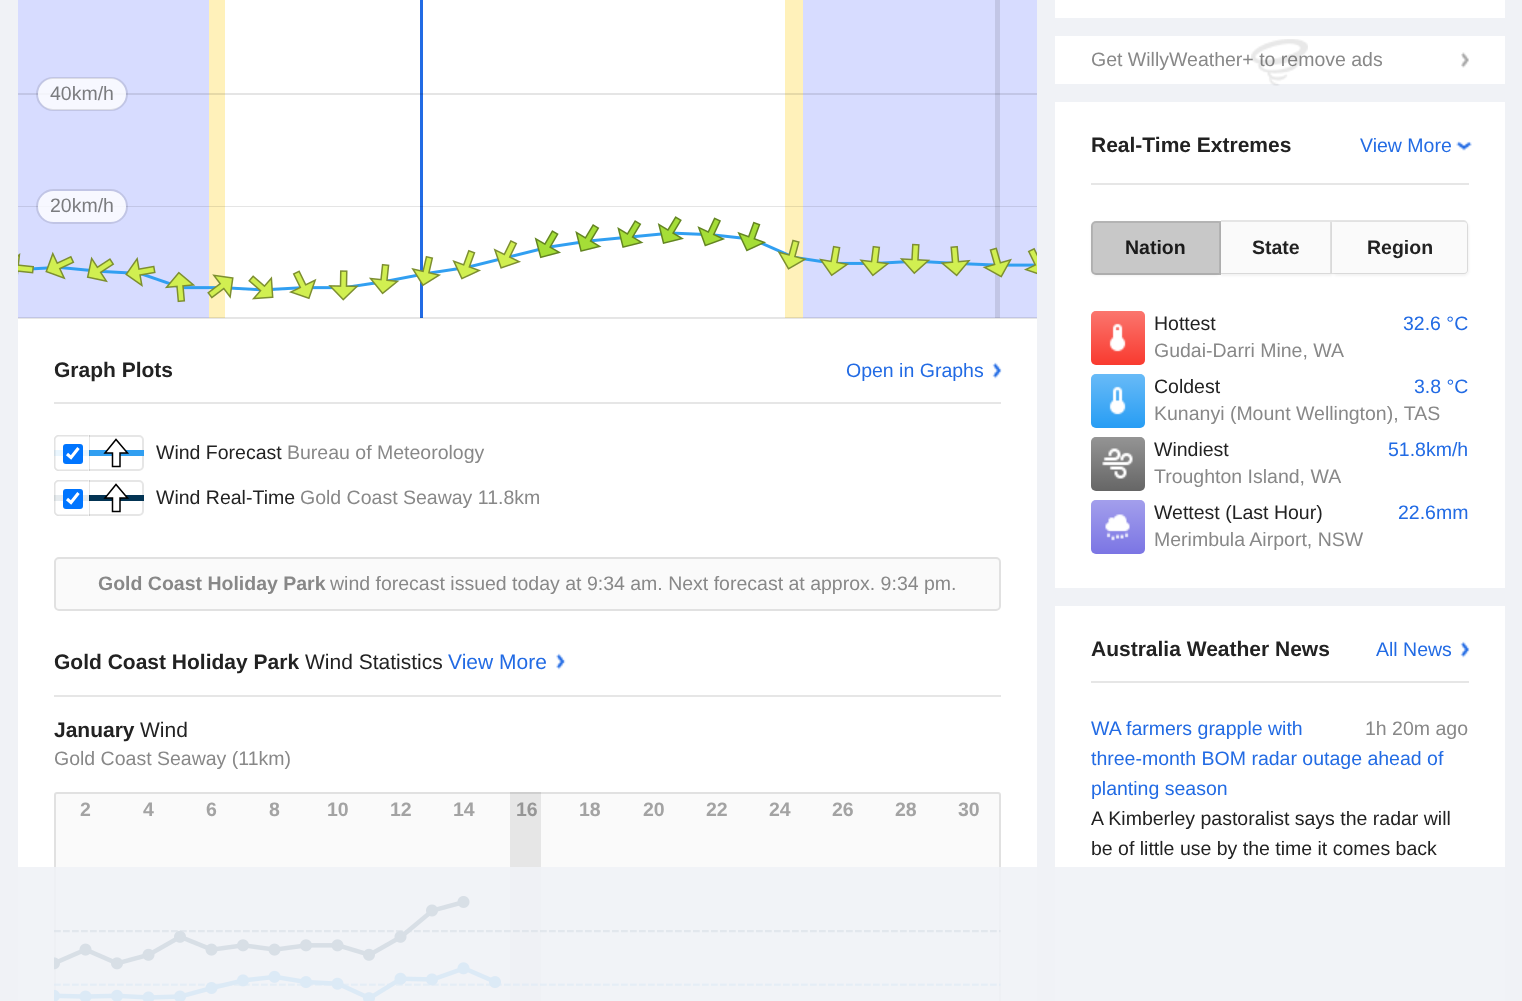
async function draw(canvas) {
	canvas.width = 1522;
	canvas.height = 1001;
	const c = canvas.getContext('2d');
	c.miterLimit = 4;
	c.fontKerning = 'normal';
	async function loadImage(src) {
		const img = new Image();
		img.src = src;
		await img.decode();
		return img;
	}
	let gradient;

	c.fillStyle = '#f0f2f6';
	c.fillRect(0, 0, 1522, 1001);
	for (const [x, y, w, h, color] of [
		[18, 319, 1019, 682, '#fff'],
		[18, 318, 1019, 1, '#e6e6e6'],
		[225, 0, 560, 318, '#fff'],
	]) {
		c.fillStyle = color;
		c.fillRect(x, y, w, h);
	}
	c.drawImage(await loadImage('img1.png'), 18, 0, 1019, 318);
	c.fillStyle = '#0000001a';
	c.fillRect(18, 317, 1019, 1);
	c.fillStyle = '#ffffffcc';
	c.beginPath();
	c.roundRect(38, 78, 88, 32, 16);
	c.fill();
	c.beginPath();
	c.roundRect(37, 78, 90, 32, 16);
	c.strokeStyle = '#0000001a';
	c.lineWidth = 2;
	c.stroke();
	c.font = '19.5px Liberation Sans';
	c.fillStyle = '#7b7c7f';
	c.fillText('40km/h', 50, 100);
	c.fillStyle = '#ffffffcc';
	c.beginPath();
	c.roundRect(38, 191, 88, 31, 15.5);
	c.fill();
	c.beginPath();
	c.roundRect(37, 190, 90, 33, 16.5);
	c.stroke();
	c.fillStyle = '#7b7c7f';
	c.fillText('20km/h', 50, 212);
	c.fillStyle = '#e6e6e6';
	c.fillRect(54, 402, 947, 2);
	c.font = 'bold 21px Liberation Sans';
	c.fillStyle = '#222';
	c.fillText('Graph Plots', 54, 377);
	c.font = '19.5px Liberation Sans';
	c.fillStyle = '#226be4';
	c.fillText('Open in Graphs', 846, 377);
	c.drawImage(await loadImage('img2.png'), 992, 362, 10, 17);
	c.beginPath();
	c.roundRect(55, 436, 88, 34, 4);
	c.strokeStyle = '#e6e6e6';
	c.stroke();
	c.fillStyle = '#319ff1';
	c.fillRect(54, 450, 90, 6);
	c.fillStyle = '#0000001a';
	c.fillRect(89, 435, 1, 36);
	c.fillStyle = '#ffffffe6';
	c.beginPath();
	c.roundRect(54, 435, 35, 36, [5, 0, 0, 5]);
	c.fill();
	c.fillStyle = '#0000001a';
	c.beginPath();
	c.moveTo(58.5, 436.5);
	c.lineTo(88.5, 436.5);
	c.lineTo(88.5, 435);
	c.lineTo(59, 435);
	c.bezierCurveTo(56, 435, 54, 437, 54, 440);
	c.lineTo(54, 466);
	c.bezierCurveTo(54, 469, 56, 471, 59, 471);
	c.lineTo(88.5, 471);
	c.lineTo(88.5, 469.5);
	c.lineTo(58.5, 469.5);
	c.bezierCurveTo(57, 469.5, 55.5, 468, 55.5, 466.5);
	c.lineTo(55.5, 439.5);
	c.bezierCurveTo(55.5, 438, 57, 436.5, 58.5, 436.5);
	c.closePath();
	c.fill();
	c.fillStyle = '#fff';
	c.beginPath();
	c.moveTo(112.5, 466.5);
	c.lineTo(112.5, 453);
	c.lineTo(105, 453);
	c.lineTo(116, 439.5);
	c.lineTo(127.5, 453);
	c.lineTo(120, 453);
	c.lineTo(120, 466.5);
	c.closePath();
	c.fill('evenodd');
	c.strokeStyle = '#000';
	c.lineWidth = 1.5;
	c.stroke();
	c.fillStyle = '#0075ff';
	c.beginPath();
	c.roundRect(63, 444, 20, 20, 3);
	c.fill();
	c.beginPath();
	c.moveTo(67, 454);
	c.lineTo(71, 457.5);
	c.lineTo(78.5, 448);
	c.strokeStyle = '#fff';
	c.lineWidth = 3.1;
	c.stroke();
	c.fillStyle = '#222';
	c.fillText('Wind Forecast', 156, 459);
	c.fillStyle = '#888';
	c.fillText('Bureau of Meteorology', 287, 459);
	c.beginPath();
	c.roundRect(55, 481, 88, 34, 4);
	c.strokeStyle = '#e6e6e6';
	c.lineWidth = 2;
	c.stroke();
	c.fillStyle = '#033454';
	c.fillRect(54, 495, 90, 6);
	c.fillStyle = '#0000001a';
	c.fillRect(89, 480, 1, 36);
	c.fillStyle = '#ffffffe6';
	c.beginPath();
	c.roundRect(54, 480, 35, 36, [5, 0, 0, 5]);
	c.fill();
	c.fillStyle = '#0000001a';
	c.beginPath();
	c.moveTo(58.5, 481.5);
	c.lineTo(88.5, 481.5);
	c.lineTo(88.5, 480);
	c.lineTo(59, 480);
	c.bezierCurveTo(56, 480, 54, 482, 54, 485);
	c.lineTo(54, 511);
	c.bezierCurveTo(54, 514, 56, 516, 59, 516);
	c.lineTo(88.5, 516);
	c.lineTo(88.5, 514.5);
	c.lineTo(58.5, 514.5);
	c.bezierCurveTo(57, 514.5, 55.5, 513, 55.5, 511.5);
	c.lineTo(55.5, 484.5);
	c.bezierCurveTo(55.5, 483, 57, 481.5, 58.5, 481.5);
	c.closePath();
	c.fill();
	c.fillStyle = '#fff';
	c.beginPath();
	c.moveTo(112.5, 511.5);
	c.lineTo(112.5, 498);
	c.lineTo(105, 498);
	c.lineTo(116, 484.5);
	c.lineTo(127.5, 498);
	c.lineTo(120, 498);
	c.lineTo(120, 511.5);
	c.closePath();
	c.fill('evenodd');
	c.strokeStyle = '#000';
	c.lineWidth = 1.5;
	c.stroke();
	c.fillStyle = '#0075ff';
	c.beginPath();
	c.roundRect(63, 489, 20, 20, 3);
	c.fill();
	c.beginPath();
	c.moveTo(67, 499);
	c.lineTo(71, 502.5);
	c.lineTo(78.5, 493);
	c.strokeStyle = '#fff';
	c.lineWidth = 3.1;
	c.stroke();
	c.fillStyle = '#222';
	c.fillText('Wind Real-Time', 156, 504);
	c.fillStyle = '#888';
	c.fillText('Gold Coast Seaway 11.8km', 300, 504);
	c.fillStyle = '#fafafa';
	c.beginPath();
	c.roundRect(55, 558, 945, 52, 4);
	c.fill();
	c.strokeStyle = '#e1e1e1';
	c.lineWidth = 2;
	c.stroke();
	c.font = 'bold 19.5px Liberation Sans';
	c.fillStyle = '#888';
	c.fillText('Gold Coast Holiday Park', 98, 590);
	c.font = '19.5px Liberation Sans';
	c.fillText('wind forecast issued today at 9:34 am. Next forecast at approx. 9:34 pm.', 330, 590);
	c.font = 'bold 21px Liberation Sans';
	c.fillStyle = '#222';
	c.fillText('Gold Coast Holiday Park', 54, 669);
	c.font = '21px Liberation Sans';
	c.fillText('Wind Statistics', 305, 669);
	c.fillStyle = '#226be4';
	c.fillText('View More', 448, 669);
	c.drawImage(await loadImage('img3.png'), 556, 653, 10, 17);
	c.fillStyle = '#e6e6e6';
	c.fillRect(54, 695, 947, 2);
	c.font = 'bold 21px Liberation Sans';
	c.fillStyle = '#222';
	c.fillText('January', 54, 737);
	c.font = '21px Liberation Sans';
	c.fillText('Wind', 140, 737);
	c.font = '19.5px Liberation Sans';
	c.fillStyle = '#888';
	c.fillText('Gold Coast Seaway (11km)', 54, 765);
	c.fillStyle = '#fafafa';
	c.beginPath();
	c.roundRect(55, 793, 945, 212, 2);
	c.fill();
	c.stroke();
	c.drawImage(await loadImage('img4.png'), 54, 792, 947, 209);
	c.font = 'bold 19.5px Liberation Sans';
	c.fillStyle = '#a3a3a3';
	for (const [text, x, y] of [
		['2', 80, 816],
		['4', 143, 816],
		['6', 206, 816],
		['8', 269, 816],
		['10', 327, 816],
		['12', 390, 816],
		['14', 453, 816],
	]) {
		c.fillText(text, x, y);
	}
	c.fillStyle = '#969696';
	c.fillText('16', 516, 816);
	c.fillStyle = '#a3a3a3';
	for (const [text, x, y] of [
		['18', 579, 816],
		['20', 643, 816],
		['22', 706, 816],
		['24', 769, 816],
		['26', 832, 816],
		['28', 895, 816],
		['30', 958, 816],
	]) {
		c.fillText(text, x, y);
	}
	c.fillStyle = '#fff';
	c.fillRect(1055, 0, 450, 18);
	c.fillRect(1055, 36, 450, 48);
	c.font = '19.5px Liberation Sans';
	c.fillStyle = '#888';
	c.fillText('Get WillyWeather+ to remove ads', 1091, 66);
	c.drawImage(await loadImage('img5.png'), 1251, 39, 57, 47);
	c.drawImage(await loadImage('img6.png'), 1461, 52, 8, 16);
	c.fillStyle = '#fff';
	c.fillRect(1055, 102, 450, 486);
	c.fillStyle = '#e6e6e6';
	c.fillRect(1091, 183, 378, 2);
	c.font = 'bold 21px Liberation Sans';
	c.fillStyle = '#222';
	c.fillText('Real-Time Extremes', 1091, 152);
	c.font = '19.5px Liberation Sans';
	c.fillStyle = '#226be4';
	c.fillText('View More', 1360, 152);
	c.drawImage(await loadImage('img7.png'), 1456, 141, 16, 10);
	c.fillStyle = '#0000000d';
	c.filter = 'blur(1px)';
	c.beginPath();
	c.roundRect(1091, 222, 130, 54, 5);
	c.fill();
	c.filter = 'none';
	c.fillStyle = '#fafafa';
	c.beginPath();
	c.roundRect(1092, 222, 128, 51, [3, 0, 0, 3]);
	c.fill();
	c.beginPath();
	c.roundRect(1092, 222, 128, 52, [4, 0, 0, 4]);
	c.strokeStyle = '#0000001a';
	c.stroke();
	c.font = 'bold 19.5px Liberation Sans';
	c.fillStyle = '#222';
	c.fillText('Nation', 1125, 254);
	c.fillStyle = '#0000000d';
	c.filter = 'blur(1px)';
	c.beginPath();
	c.rect(1221, 222, 111, 54);
	c.fill();
	c.filter = 'none';
	c.fillStyle = '#00000033';
	c.beginPath();
	c.roundRect(1091, 221, 130, 54, [5, 0, 0, 5]);
	c.fill();
	c.fillStyle = '#fafafa';
	c.fillRect(1221, 222, 110, 51);
	c.fillStyle = '#e5e5e5';
	c.beginPath();
	c.moveTo(1221, 220);
	c.lineTo(1332, 220);
	c.lineTo(1330, 222);
	c.lineTo(1221, 222);
	c.closePath();
	c.fill();
	c.fillStyle = '#0000001a';
	c.beginPath();
	c.moveTo(1332, 220);
	c.lineTo(1332, 274);
	c.lineTo(1330, 273);
	c.lineTo(1330, 222);
	c.closePath();
	c.fill();
	c.beginPath();
	c.moveTo(1332, 274);
	c.lineTo(1221, 274);
	c.lineTo(1221, 273);
	c.lineTo(1330, 273);
	c.closePath();
	c.fill();
	c.fillStyle = '#222';
	c.fillText('State', 1252, 254);
	c.fillStyle = '#0000000d';
	c.filter = 'blur(1px)';
	c.beginPath();
	c.roundRect(1332, 222, 137, 54, 5);
	c.fill();
	c.filter = 'none';
	c.fillStyle = '#fafafa';
	c.beginPath();
	c.roundRect(1332, 222, 135, 51, [0, 3, 3, 0]);
	c.fill();
	c.fillStyle = '#0000001a';
	c.beginPath();
	c.moveTo(1332, 220);
	c.lineTo(1464, 220);
	c.bezierCurveTo(1466, 220, 1468, 223, 1468, 225);
	c.lineTo(1468, 270);
	c.bezierCurveTo(1468, 272, 1466, 274, 1464, 274);
	c.lineTo(1332, 274);
	c.closePath();
	c.moveTo(1332, 222);
	c.lineTo(1464, 222);
	c.bezierCurveTo(1466, 222, 1467, 223, 1467, 225);
	c.lineTo(1467, 270);
	c.bezierCurveTo(1467, 272, 1466, 273, 1464, 273);
	c.lineTo(1332, 273);
	c.closePath();
	c.fill('evenodd');
	c.fillStyle = '#222';
	c.fillText('Region', 1367, 254);
	c.fillStyle = '#f93a2f';
	c.beginPath();
	c.roundRect(1091, 311, 54, 54, 5);
	c.fill();
	gradient = c.createLinearGradient(1118, 311, 1118, 365);
	gradient.addColorStop(0, '#ffffff4d');
	gradient.addColorStop(1, '#ffffff00');
	c.fillStyle = gradient;
	c.beginPath();
	c.roundRect(1091, 311, 54, 54, 5);
	c.fill();
	c.drawImage(await loadImage('img8.png'), 1109, 323, 17, 29);
	c.font = '19.5px Liberation Sans';
	c.fillStyle = '#222';
	c.fillText('Hottest', 1154, 330);
	c.fillStyle = '#226be4';
	c.fillText('32.6 °C', 1403, 330);
	c.fillStyle = '#888';
	c.fillText('Gudai-Darri Mine, WA', 1154, 357);
	c.fillStyle = '#279df4';
	c.beginPath();
	c.roundRect(1091, 374, 54, 54, 5);
	c.fill();
	gradient = c.createLinearGradient(1118, 374, 1118, 428);
	gradient.addColorStop(0, '#ffffff4d');
	gradient.addColorStop(1, '#ffffff00');
	c.fillStyle = gradient;
	c.beginPath();
	c.roundRect(1091, 374, 54, 54, 5);
	c.fill();
	c.drawImage(await loadImage('img9.png'), 1109, 386, 17, 29);
	c.fillStyle = '#222';
	c.fillText('Coldest', 1154, 393);
	c.fillStyle = '#226be4';
	c.fillText('3.8 °C', 1414, 393);
	c.fillStyle = '#888';
	c.fillText('Kunanyi (Mount Wellington), TAS', 1154, 420);
	c.fillStyle = '#666';
	c.beginPath();
	c.roundRect(1091, 437, 54, 54, 5);
	c.fill();
	gradient = c.createLinearGradient(1118, 437, 1118, 491);
	gradient.addColorStop(0, '#ffffff4d');
	gradient.addColorStop(1, '#ffffff00');
	c.fillStyle = gradient;
	c.beginPath();
	c.roundRect(1091, 437, 54, 54, 5);
	c.fill();
	c.drawImage(await loadImage('img10.png'), 1102, 448, 31, 31);
	c.fillStyle = '#222';
	c.fillText('Windiest', 1154, 456);
	c.fillStyle = '#226be4';
	c.fillText('51.8km/h', 1388, 456);
	c.fillStyle = '#888';
	c.fillText('Troughton Island, WA', 1154, 483);
	c.fillStyle = '#7b75e4';
	c.beginPath();
	c.roundRect(1091, 500, 54, 54, 5);
	c.fill();
	gradient = c.createLinearGradient(1118, 500, 1118, 554);
	gradient.addColorStop(0, '#ffffff4d');
	gradient.addColorStop(1, '#ffffff00');
	c.fillStyle = gradient;
	c.beginPath();
	c.roundRect(1091, 500, 54, 54, 5);
	c.fill();
	c.drawImage(await loadImage('img11.png'), 1105, 514, 25, 27);
	c.fillStyle = '#222';
	c.fillText('Wettest (Last Hour)', 1154, 519);
	c.fillStyle = '#226be4';
	c.fillText('22.6mm', 1398, 519);
	c.fillStyle = '#888';
	c.fillText('Merimbula Airport, NSW', 1154, 546);
	c.fillStyle = '#fff';
	c.fillRect(1055, 606, 450, 395);
	c.fillStyle = '#e6e6e6';
	c.fillRect(1091, 681, 378, 2);
	c.font = 'bold 21px Liberation Sans';
	c.fillStyle = '#222';
	c.fillText('Australia Weather News', 1091, 656);
	c.font = '19.5px Liberation Sans';
	c.fillStyle = '#226be4';
	c.fillText('All News', 1376, 656);
	c.drawImage(await loadImage('img2.png'), 1460, 641, 10, 17);
	c.fillText('WA farmers grapple with', 1091, 735);
	c.fillStyle = '#888';
	c.fillText('1h 20m ago', 1365, 735);
	c.fillStyle = '#226be4';
	c.fillText('three-month BOM radar outage ahead of', 1091, 765);
	c.fillText('planting season', 1091, 795);
	c.fillStyle = '#222';
	c.fillText('A Kimberley pastoralist says the radar will', 1091, 825);
	c.fillText('be of little use by the time it comes back', 1091, 855);
	c.fillStyle = '#f0f2f6e6';
	c.fillRect(18, 867, 1487, 134);
}

draw(document.querySelector('canvas'));
